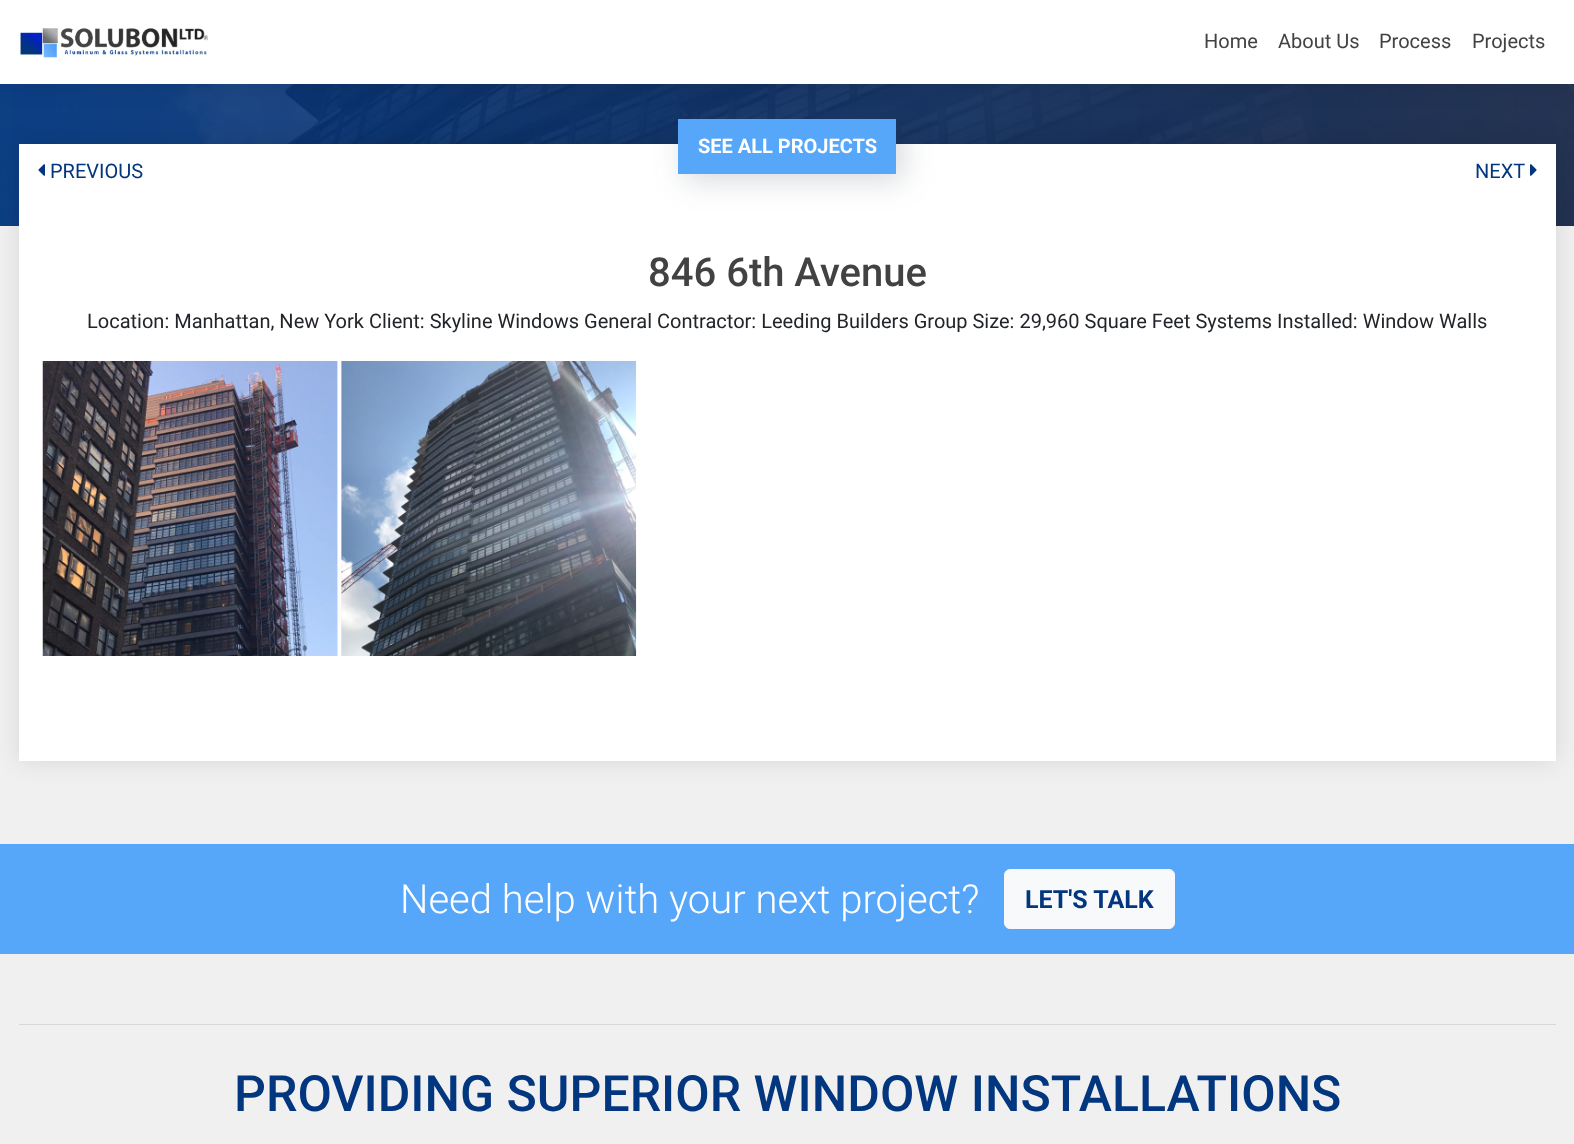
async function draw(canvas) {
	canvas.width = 1574;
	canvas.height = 1144;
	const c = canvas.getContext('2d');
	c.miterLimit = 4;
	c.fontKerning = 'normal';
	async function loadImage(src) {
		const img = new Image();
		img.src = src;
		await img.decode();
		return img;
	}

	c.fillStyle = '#f0f0f0';
	c.fillRect(0, 0, 1574, 1144);
	c.drawImage(await loadImage('img2.png'), 0, 84, 1574, 142);
	c.fillStyle = '#0000001a';
	c.filter = 'blur(12.5px)';
	c.beginPath();
	c.rect(19, 144, 1537, 617);
	c.fill();
	c.filter = 'none';
	c.fillStyle = '#fff';
	c.fillRect(19, 144, 1537, 617);
	c.fillStyle = '#2e3d4933';
	c.filter = 'blur(15.5px)';
	c.beginPath();
	c.rect(684, 125, 219, 55);
	c.fill();
	c.filter = 'none';
	c.fillStyle = '#56a6f9';
	c.fillRect(678, 119, 218, 55);
	c.fillStyle = '#0000001a';
	c.filter = 'blur(12.5px)';
	c.beginPath();
	c.rect(0, 0, 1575, 84);
	c.fill();
	c.filter = 'none';
	c.fillStyle = '#fff';
	c.fillRect(0, 0, 1574, 84);
	c.drawImage(await loadImage('img1.png'), 20, 28, 188, 30);
	c.font = '20px Roboto';
	c.fillStyle = '#424242';
	for (const [text, x, y] of [
		['Home', 1204, 48],
		['About Us', 1278, 48],
		['Process', 1379, 48],
		['Projects', 1472, 48],
	]) {
		c.fillText(text, x, y);
	}
	c.font = 'bold 20px Roboto';
	c.fillStyle = '#fff';
	c.fillText('SEE ALL PROJECTS', 698, 153);
	c.drawImage(await loadImage('img3.png'), 38, 164, 7, 12);
	c.font = '20px Roboto';
	c.fillStyle = '#02367f';
	c.fillText('PREVIOUS', 50, 178);
	c.fillText('NEXT', 1475, 178);
	c.drawImage(await loadImage('img4.png'), 1530, 164, 7, 12);
	c.font = '500 40px Roboto';
	c.fillStyle = '#424242';
	c.fillText('846 6th Avenue', 648, 286);
	c.font = '20px Roboto';
	c.fillStyle = '#212529';
	c.fillText('Location: Manhattan, New York Client: Skyline Windows General Contractor: Leeding Builders Group Size: 29,960 Square Feet Systems Installed: Window Walls', 87, 328);
	c.fillStyle = '#f0f0f0';
	c.fillRect(337, 361, 1, 295);
	c.drawImage(await loadImage('img5.png'), 42, 361, 296, 295);
	c.fillRect(341, 361, 1, 295);
	c.drawImage(await loadImage('img6.png'), 341, 361, 296, 295);
	c.fillStyle = '#56a6f9';
	c.fillRect(0, 844, 1574, 110);
	c.font = '300 40px Roboto';
	c.fillStyle = '#fff';
	c.fillText('Need help with your next project?', 400, 913);
	c.fillStyle = '#f8f9fa';
	c.beginPath();
	c.roundRect(1004.5, 869.5, 170, 59, 5.5);
	c.fill();
	c.strokeStyle = '#f8f9fa';
	c.stroke();
	c.font = 'bold 25px Roboto';
	c.fillStyle = '#02367f';
	c.fillText('LET\'S TALK', 1025, 908);
	c.fillStyle = '#d8d8d8';
	c.fillRect(19, 1024, 1537, 1);
	c.font = '500 50px Roboto';
	c.fillStyle = '#02367f';
	c.fillText('PROVIDING SUPERIOR WINDOW INSTALLATIONS', 234, 1111);
}

draw(document.querySelector('canvas'));
